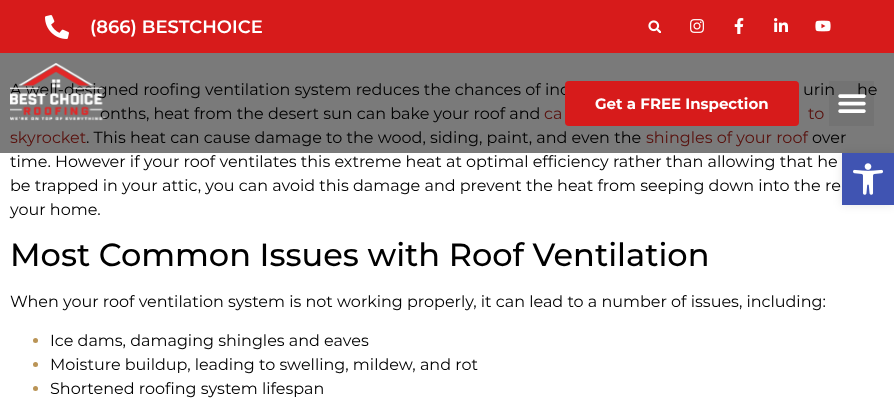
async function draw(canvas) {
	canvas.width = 894;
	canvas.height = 406;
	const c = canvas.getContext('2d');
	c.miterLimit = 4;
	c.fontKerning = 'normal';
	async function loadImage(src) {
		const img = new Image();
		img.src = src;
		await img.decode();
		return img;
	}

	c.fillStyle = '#fff';
	c.fillRect(0, 0, 894, 406);
	c.fillStyle = '#d71b1b';
	c.fillRect(0, 0, 894, 53);
	c.drawImage(await loadImage('img1.png'), 45, 15, 24, 24);
	c.font = '600 18px Montserrat';
	c.fillStyle = '#fff';
	c.fillText('(866) BESTCHOICE', 90, 33);
	c.drawImage(await loadImage('img2.png'), 648, 20, 13, 13);
	c.drawImage(await loadImage('img3.png'), 690, 19, 14, 14);
	c.drawImage(await loadImage('img4.png'), 734, 18, 10, 16);
	c.drawImage(await loadImage('img5.png'), 774, 18, 14, 14);
	c.drawImage(await loadImage('img6.png'), 815, 20, 16, 12);
	c.font = '16px Montserrat';
	c.fillStyle = '#000';
	for (const [text, x, y] of [
		['A well-designed roofing ventilation system reduces the chances of ind', 10, 95],
		['urin', 803, 95],
		['he', 857, 95],
		['onths, heat from the desert sun can bake your roof and', 100, 119],
	]) {
		c.fillText(text, x, y);
	}
	c.fillStyle = '#bb2820';
	for (const [text, x, y] of [
		['ca', 544, 119],
		['to', 808, 119],
		['skyrocket', 10, 143],
	]) {
		c.fillText(text, x, y);
	}
	c.fillStyle = '#000';
	c.fillText('. This heat can cause damage to the wood, siding, paint, and even the', 86, 143);
	c.fillStyle = '#bb2820';
	c.fillText('shingles of your roof', 646, 143);
	c.fillStyle = '#000';
	c.fillText('over', 812, 143);
	c.fillStyle = '#00000085';
	c.fillRect(0, 53, 894, 100);
	c.drawImage(await loadImage('img7.png'), 10, 63, 96, 58);
	c.fillStyle = '#d71b1b';
	c.beginPath();
	c.roundRect(565, 81, 234, 45, 4);
	c.fill();
	c.font = 'bold 15px Montserrat';
	c.fillStyle = '#fff';
	c.fillText('Get a FREE Inspection', 595, 109);
	c.fillStyle = '#0000000d';
	c.fillRect(829, 81, 45, 45);
	c.drawImage(await loadImage('img8.png'), 838, 94, 28, 19);
	c.font = '16px Montserrat';
	c.fillStyle = '#000';
	for (const [text, x, y] of [
		['time. However if your roof ventilates this extreme heat at optimal efficiency rather than allowing that he', 10, 167],
		['be trapped in your attic, you can avoid this damage and prevent the heat from seeping down into the re', 10, 191],
		['your home.', 10, 215],
	]) {
		c.fillText(text, x, y);
	}
	c.font = '500 32px Montserrat';
	c.fillText('Most Common Issues with Roof Ventilation', 10, 266);
	c.font = '16px Montserrat';
	c.fillText('When your roof ventilation system is not working properly, it can lead to a number of issues, including:', 10, 307);
	c.fillStyle = '#ba9456';
	c.beginPath();
	c.arc(35.5, 340.5, 2.5, 0, 2 * Math.PI);
	c.fill();
	c.fillStyle = '#000';
	c.fillText('Ice dams, damaging shingles and eaves', 50, 346);
	c.fillStyle = '#ba9456';
	c.beginPath();
	c.arc(35.5, 364.5, 2.5, 0, 2 * Math.PI);
	c.fill();
	c.fillStyle = '#000';
	c.fillText('Moisture buildup, leading to swelling, mildew, and rot', 50, 370);
	c.fillStyle = '#ba9456';
	c.beginPath();
	c.arc(35.5, 388.5, 2.5, 0, 2 * Math.PI);
	c.fill();
	c.fillStyle = '#000';
	c.fillText('Shortened roofing system lifespan', 50, 394);
	c.fillStyle = '#0000001a';
	c.filter = 'blur(5px)';
	c.beginPath();
	c.rect(842, 153, 52, 52);
	c.fill();
	c.filter = 'none';
	c.fillStyle = '#4054b2';
	c.fillRect(842, 153, 52, 52);
	c.drawImage(await loadImage('img9.png'), 853, 163, 30, 32);
}

draw(document.querySelector('canvas'));
